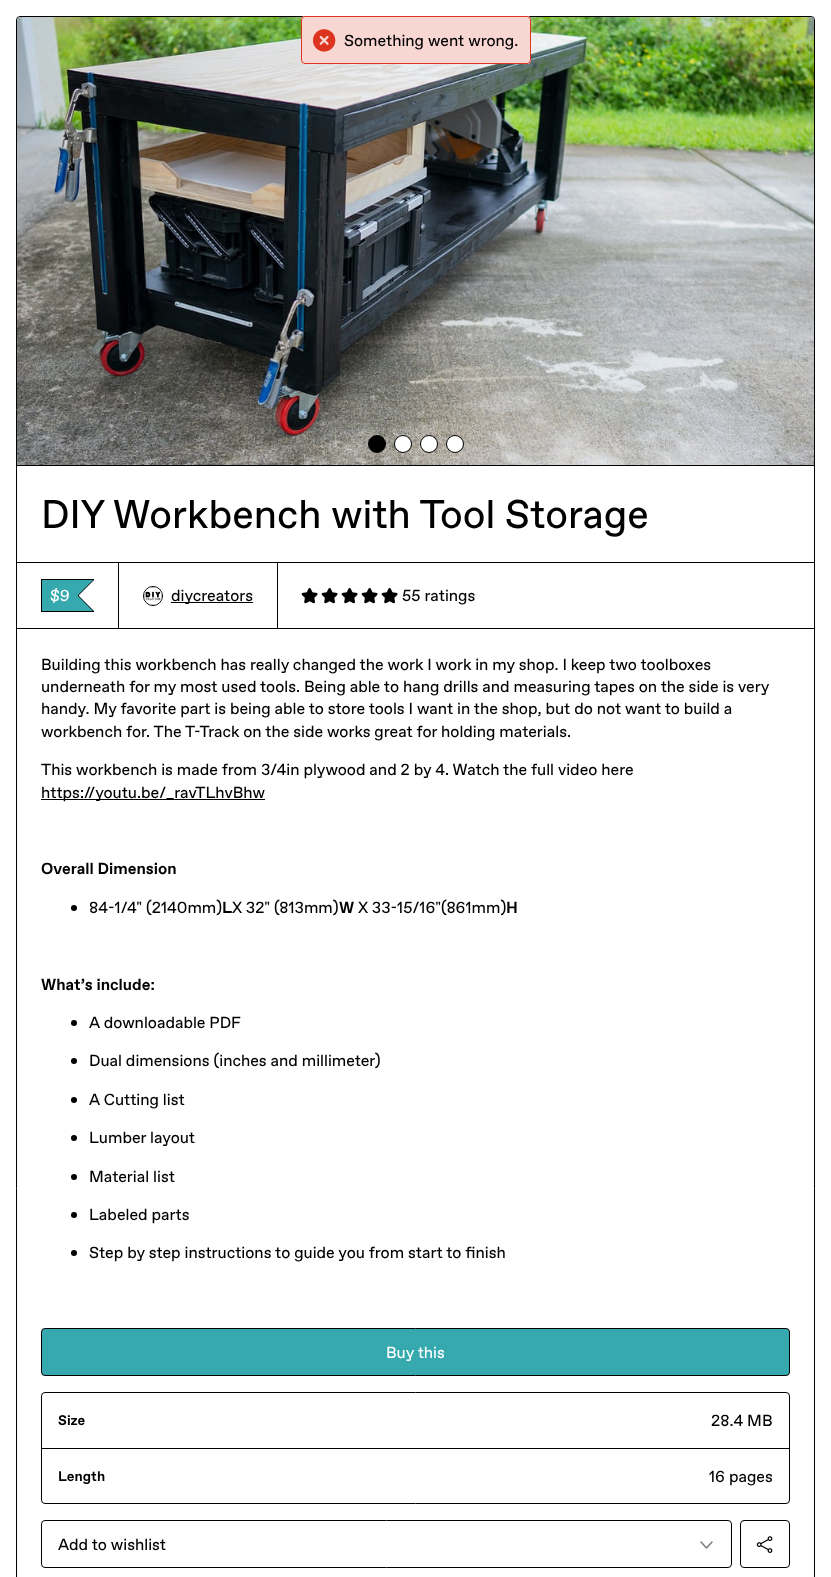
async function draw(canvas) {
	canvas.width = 831;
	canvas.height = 1577;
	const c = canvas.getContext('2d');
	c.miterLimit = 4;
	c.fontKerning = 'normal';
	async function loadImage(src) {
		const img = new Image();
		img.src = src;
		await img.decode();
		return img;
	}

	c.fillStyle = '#fff';
	c.fillRect(0, 0, 831, 1577);
	c.beginPath();
	c.roundRect(16.5, 16.5, 798, 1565, 3.5);
	c.strokeStyle = '#000';
	c.stroke();
	c.drawImage(await loadImage('img2.png'), 17, 17, 797, 448);
	c.beginPath();
	c.roundRect(301, 16, 230, 48, 4);
	c.fill();
	c.fillStyle = '#dc341e33';
	c.beginPath();
	c.roundRect(301.5, 16.5, 229, 47, 3.5);
	c.fill();
	c.strokeStyle = '#dc341e';
	c.stroke();
	c.drawImage(await loadImage('img1.png'), 312, 29, 24, 23);
	c.font = '16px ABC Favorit';
	c.fillStyle = '#000';
	c.fillText('Something went wrong.', 344, 46);
	c.fillRect(17, 465, 797, 1);
	c.beginPath();
	c.arc(377, 444, 8.5, 0, 2 * Math.PI);
	c.fill();
	c.strokeStyle = '#000';
	c.stroke();
	c.fillStyle = '#fff';
	c.beginPath();
	c.arc(403, 444, 8.5, 0, 2 * Math.PI);
	c.fill();
	c.stroke();
	c.beginPath();
	c.arc(429, 444, 8.5, 0, 2 * Math.PI);
	c.fill();
	c.stroke();
	c.beginPath();
	c.arc(455, 444, 8.5, 0, 2 * Math.PI);
	c.fill();
	c.stroke();
	c.font = '40px ABC Favorit';
	c.fillStyle = '#000';
	c.fillText('DIY Workbench with Tool Storage', 41, 528);
	c.fillRect(278, 562, 536, 1);
	c.strokeRect(16.5, 562.5, 102, 66);
	for (const [x, y, w, h, color] of [
		[41, 579, 53, 1, '#000'],
		[41, 611, 53, 1, '#000'],
		[41, 579, 1, 33, '#000'],
		[42, 580, 36, 31, '#36a9ae'],
	]) {
		c.fillStyle = color;
		c.fillRect(x, y, w, h);
	}
	c.fillStyle = '#000';
	c.beginPath();
	c.moveTo(78, 580);
	c.lineTo(94, 580);
	c.lineTo(79, 595);
	c.closePath();
	c.moveTo(94, 611);
	c.lineTo(78, 611);
	c.lineTo(79, 596);
	c.closePath();
	c.fill();
	c.fillRect(78, 594, 1, 3);
	c.fillStyle = '#36a9ae';
	c.beginPath();
	c.moveTo(77, 580);
	c.lineTo(93, 580);
	c.lineTo(78, 595);
	c.closePath();
	c.moveTo(93, 611);
	c.lineTo(77, 611);
	c.lineTo(78, 596);
	c.closePath();
	c.fill();
	c.font = '16px ABC Favorit';
	c.fillStyle = '#fff';
	c.fillText('$9', 50, 601);
	c.strokeRect(118.5, 562.5, 159, 66);
	c.beginPath();
	c.arc(153, 596, 9.5, 0, 2 * Math.PI);
	c.stroke();
	c.drawImage(await loadImage('img3.png'), 144, 587, 18, 18);
	c.fillStyle = '#000';
	c.fillRect(171, 602, 82, 1);
	c.fillText('diycreators', 171, 601);
	c.drawImage(await loadImage('img4.png'), 301, 588, 17, 16);
	c.drawImage(await loadImage('img4.png'), 321, 588, 17, 16);
	c.drawImage(await loadImage('img4.png'), 341, 588, 17, 16);
	c.drawImage(await loadImage('img4.png'), 361, 588, 17, 16);
	c.drawImage(await loadImage('img4.png'), 381, 588, 17, 16);
	c.fillText('55 ratings', 402, 601);
	c.fillRect(278, 628, 536, 1);
	for (const [text, x, y] of [
		['Building this workbench has really changed the work I work in my shop. I keep two toolboxes', 41, 670],
		['underneath for my most used tools. Being able to hang drills and measuring tapes on the side is very', 41, 692],
		['handy. My favorite part is being able to store tools I want in the shop, but do not want to build a', 41, 714],
		['workbench for. The T-Track on the side works great for holding materials.', 41, 737],
		['This workbench is made from 3/4in plywood and 2 by 4. Watch the full video here', 41, 775],
	]) {
		c.fillText(text, x, y);
	}
	c.fillRect(41, 799, 224, 1);
	c.fillText('https://youtu.be/_ravTLhvBhw', 41, 798);
	c.font = 'bold 16px ABC Favorit';
	c.fillText('Overall Dimension', 41, 874);
	c.beginPath();
	c.arc(74, 908, 3, 0, 2 * Math.PI);
	c.fill();
	c.font = '16px ABC Favorit';
	c.fillText('84-1/4" (2140mm)', 89, 913);
	c.font = 'bold 16px ABC Favorit';
	c.fillText('L', 222, 913);
	c.font = '16px ABC Favorit';
	c.fillText('X 32" (813mm)', 232, 913);
	c.font = 'bold 16px ABC Favorit';
	c.fillText('W', 339, 913);
	c.font = '16px ABC Favorit';
	c.fillText('X 33-15/16"(861mm)', 358, 913);
	c.font = 'bold 16px ABC Favorit';
	c.fillText('H', 506, 913);
	c.fillText('What’s include:', 41, 990);
	c.beginPath();
	c.arc(74, 1023, 3, 0, 2 * Math.PI);
	c.fill();
	c.font = '16px ABC Favorit';
	c.fillText('A downloadable PDF', 89, 1028);
	c.beginPath();
	c.arc(74, 1061, 3, 0, 2 * Math.PI);
	c.fill();
	c.fillText('Dual dimensions (inches and millimeter)', 89, 1066);
	c.beginPath();
	c.arc(74, 1100, 3, 0, 2 * Math.PI);
	c.fill();
	c.fillText('A Cutting list', 89, 1105);
	c.beginPath();
	c.arc(74, 1138, 3, 0, 2 * Math.PI);
	c.fill();
	c.fillText('Lumber layout', 89, 1143);
	c.beginPath();
	c.arc(74, 1177, 3, 0, 2 * Math.PI);
	c.fill();
	c.fillText('Material list', 89, 1182);
	c.beginPath();
	c.arc(74, 1215, 3, 0, 2 * Math.PI);
	c.fill();
	c.fillText('Labeled parts', 89, 1220);
	c.beginPath();
	c.arc(74, 1253, 3, 0, 2 * Math.PI);
	c.fill();
	c.fillText('Step by step instructions to guide you from start to finish', 89, 1258);
	c.fillStyle = '#36a9ae';
	c.beginPath();
	c.roundRect(41.5, 1328.5, 748, 47, 3.5);
	c.fill();
	c.stroke();
	c.fillStyle = '#fff';
	c.fillText('Buy this', 386, 1358);
	c.beginPath();
	c.roundRect(41.5, 1392.5, 748, 111, 3.5);
	c.stroke();
	c.fillStyle = '#000';
	c.fillRect(42, 1448, 747, 1);
	c.font = 'bold 14px ABC Favorit';
	c.fillText('Size', 58, 1425);
	c.font = '16px ABC Favorit';
	c.fillText('28.4 MB', 711, 1426);
	c.font = 'bold 14px ABC Favorit';
	c.fillText('Length', 58, 1481);
	c.font = '16px ABC Favorit';
	c.fillText('16 pages', 709, 1482);
	c.beginPath();
	c.roundRect(41.5, 1520.5, 690, 47, 3.5);
	c.stroke();
	c.fillText('Add to wishlist', 58, 1550);
	c.beginPath();
	c.moveTo(712, 1542);
	c.lineTo(706.5, 1548);
	c.lineTo(701, 1542);
	c.strokeStyle = '#808080';
	c.lineWidth = 1.6;
	c.lineCap = 'round';
	c.lineJoin = 'round';
	c.stroke();
	c.beginPath();
	c.roundRect(740.5, 1520.5, 49, 47, 3.5);
	c.strokeStyle = '#000';
	c.lineWidth = 1;
	c.lineJoin = 'miter';
	c.stroke();
	c.drawImage(await loadImage('img5.png'), 756, 1536, 17, 17);
}

draw(document.querySelector('canvas'));
